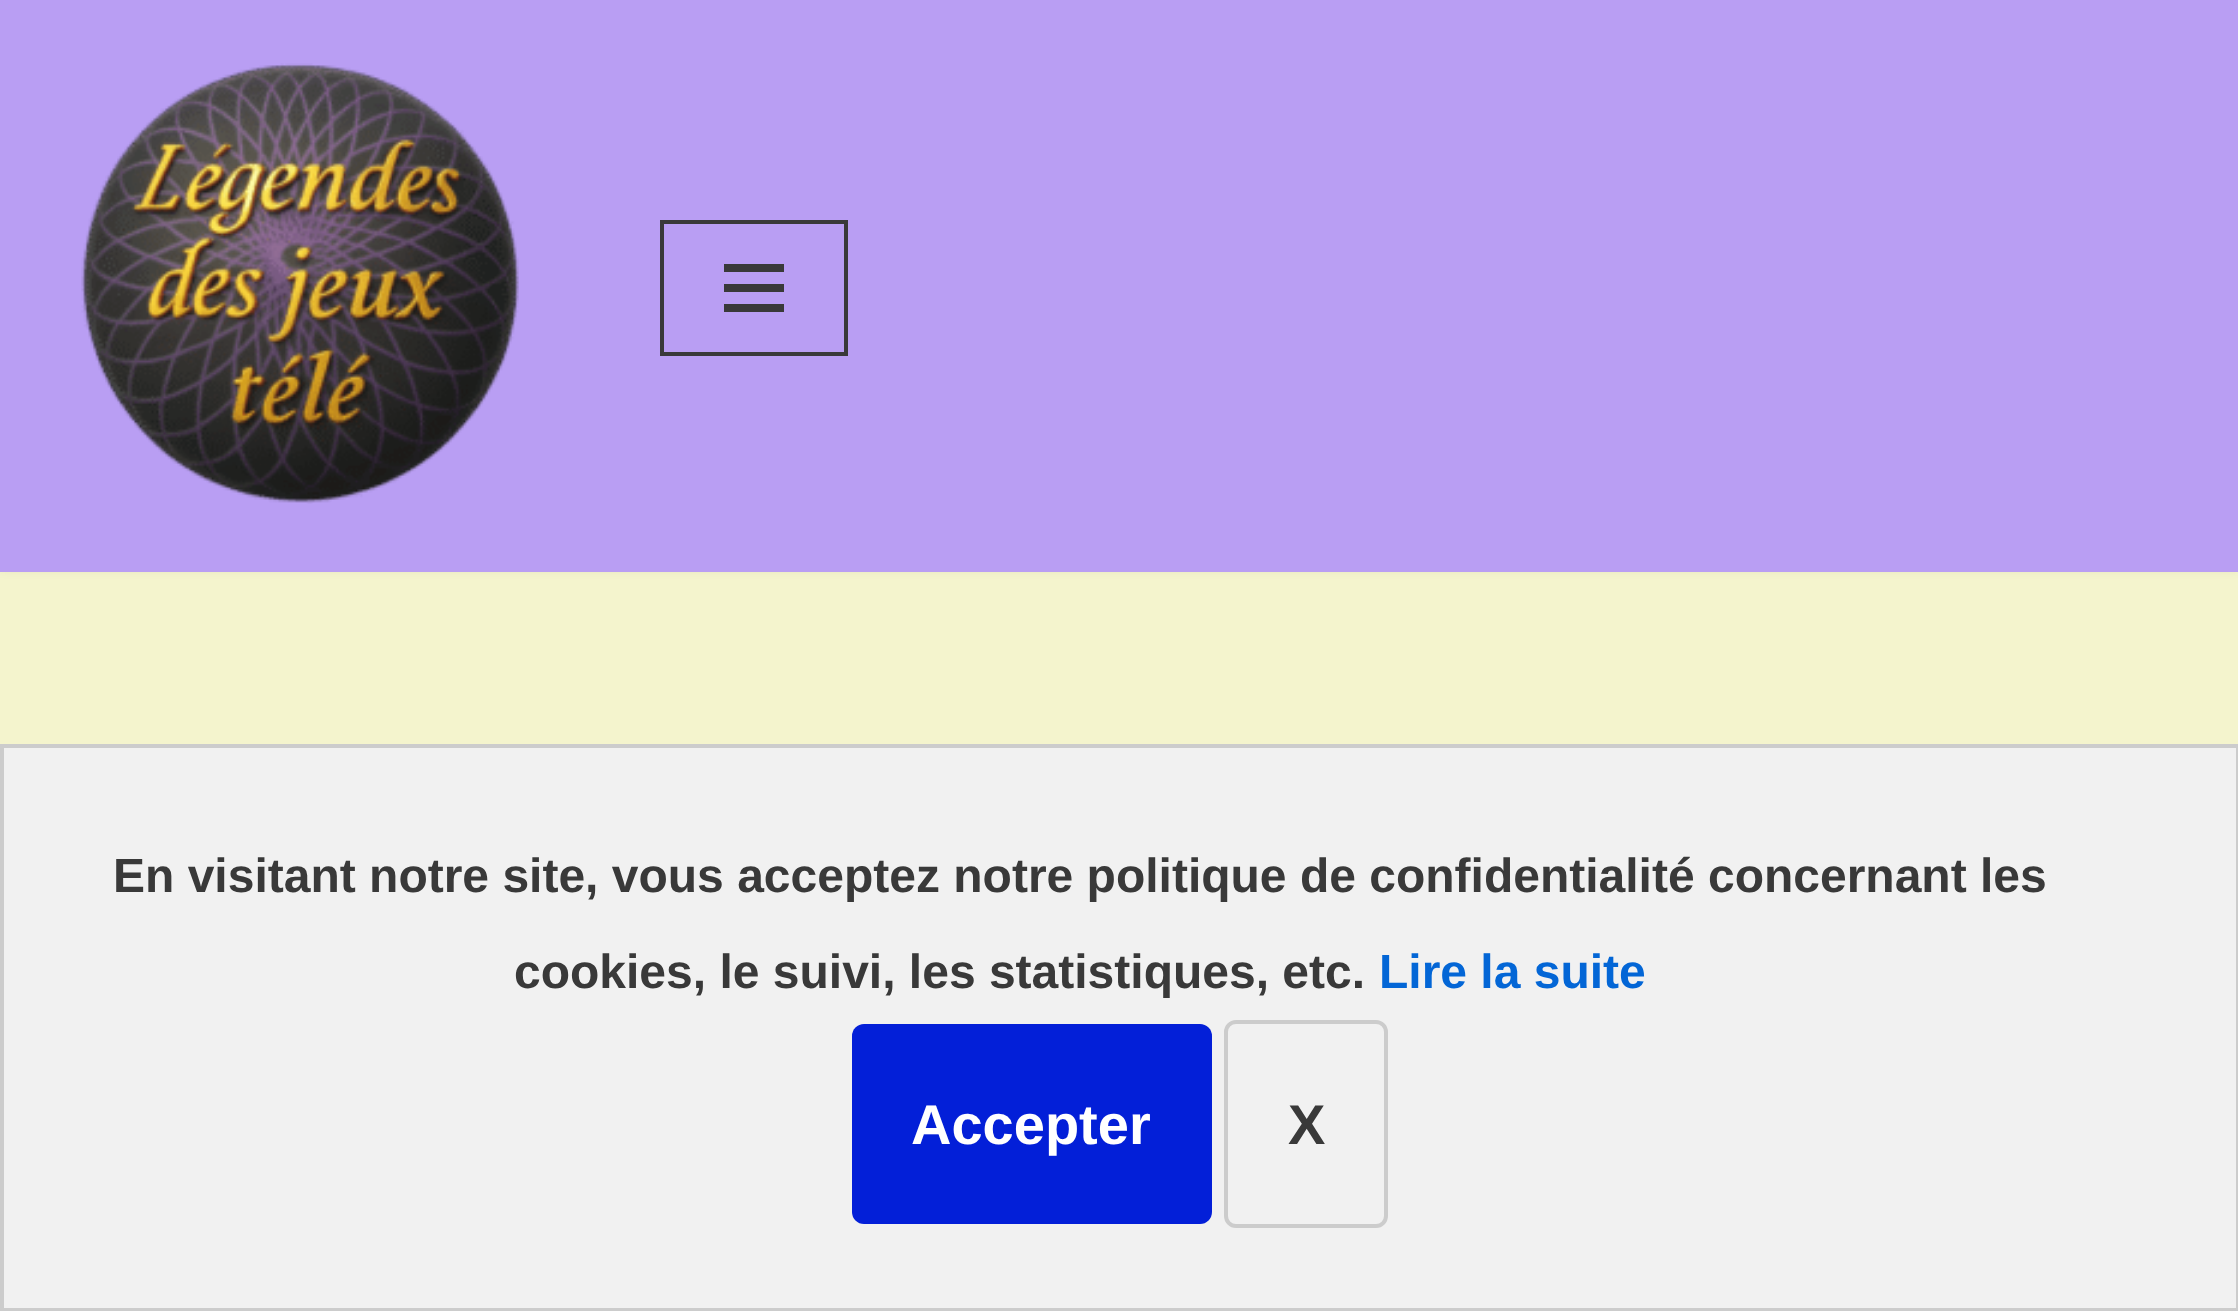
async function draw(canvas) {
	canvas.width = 2238;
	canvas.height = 1311;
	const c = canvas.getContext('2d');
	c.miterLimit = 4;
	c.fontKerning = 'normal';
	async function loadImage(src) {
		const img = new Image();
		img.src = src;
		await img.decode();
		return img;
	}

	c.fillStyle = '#f4f4cd';
	c.fillRect(0, 0, 2238, 1311);
	c.fillStyle = '#0000001a';
	c.filter = 'blur(6px)';
	c.beginPath();
	c.rect(0, -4, 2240, 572);
	c.fill();
	c.filter = 'none';
	c.fillStyle = '#b99ef3';
	c.fillRect(0, 0, 2238, 572);
	c.drawImage(await loadImage('img1.png'), 81, 63, 438, 441);
	c.strokeStyle = '#393939';
	c.lineWidth = 4;
	c.strokeRect(662, 222, 184, 132);
	for (const [x, y, w, h, color] of [
		[724, 264, 60, 8, '#393939'],
		[724, 284, 60, 8, '#393939'],
		[724, 304, 60, 8, '#393939'],
	]) {
		c.fillStyle = color;
		c.fillRect(x, y, w, h);
	}
	c.fillStyle = '#f1f1f1';
	c.beginPath();
	c.rect(2, 746, 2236, 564);
	c.fill();
	c.strokeStyle = '#ccc';
	c.stroke();
	c.font = 'bold 48px Liberation Sans';
	c.fillStyle = '#393939';
	c.fillText('En visitant notre site, vous acceptez notre politique de confidentialité concernant les', 113, 892);
	c.fillText('cookies, le suivi, les statistiques, etc.', 514, 988);
	c.fillStyle = '#0366d6';
	c.fillText('Lire la suite', 1379, 988);
	c.fillStyle = '#031fd8';
	c.beginPath();
	c.roundRect(852, 1024, 360, 200, 12);
	c.fill();
	c.font = 'bold 56px Liberation Sans';
	c.fillStyle = '#fff';
	c.fillText('Accepter', 911, 1144);
	c.beginPath();
	c.roundRect(1226, 1022, 160, 204, 10);
	c.stroke();
	c.fillStyle = '#393939';
	c.fillText('X', 1288, 1144);
}

draw(document.querySelector('canvas'));
